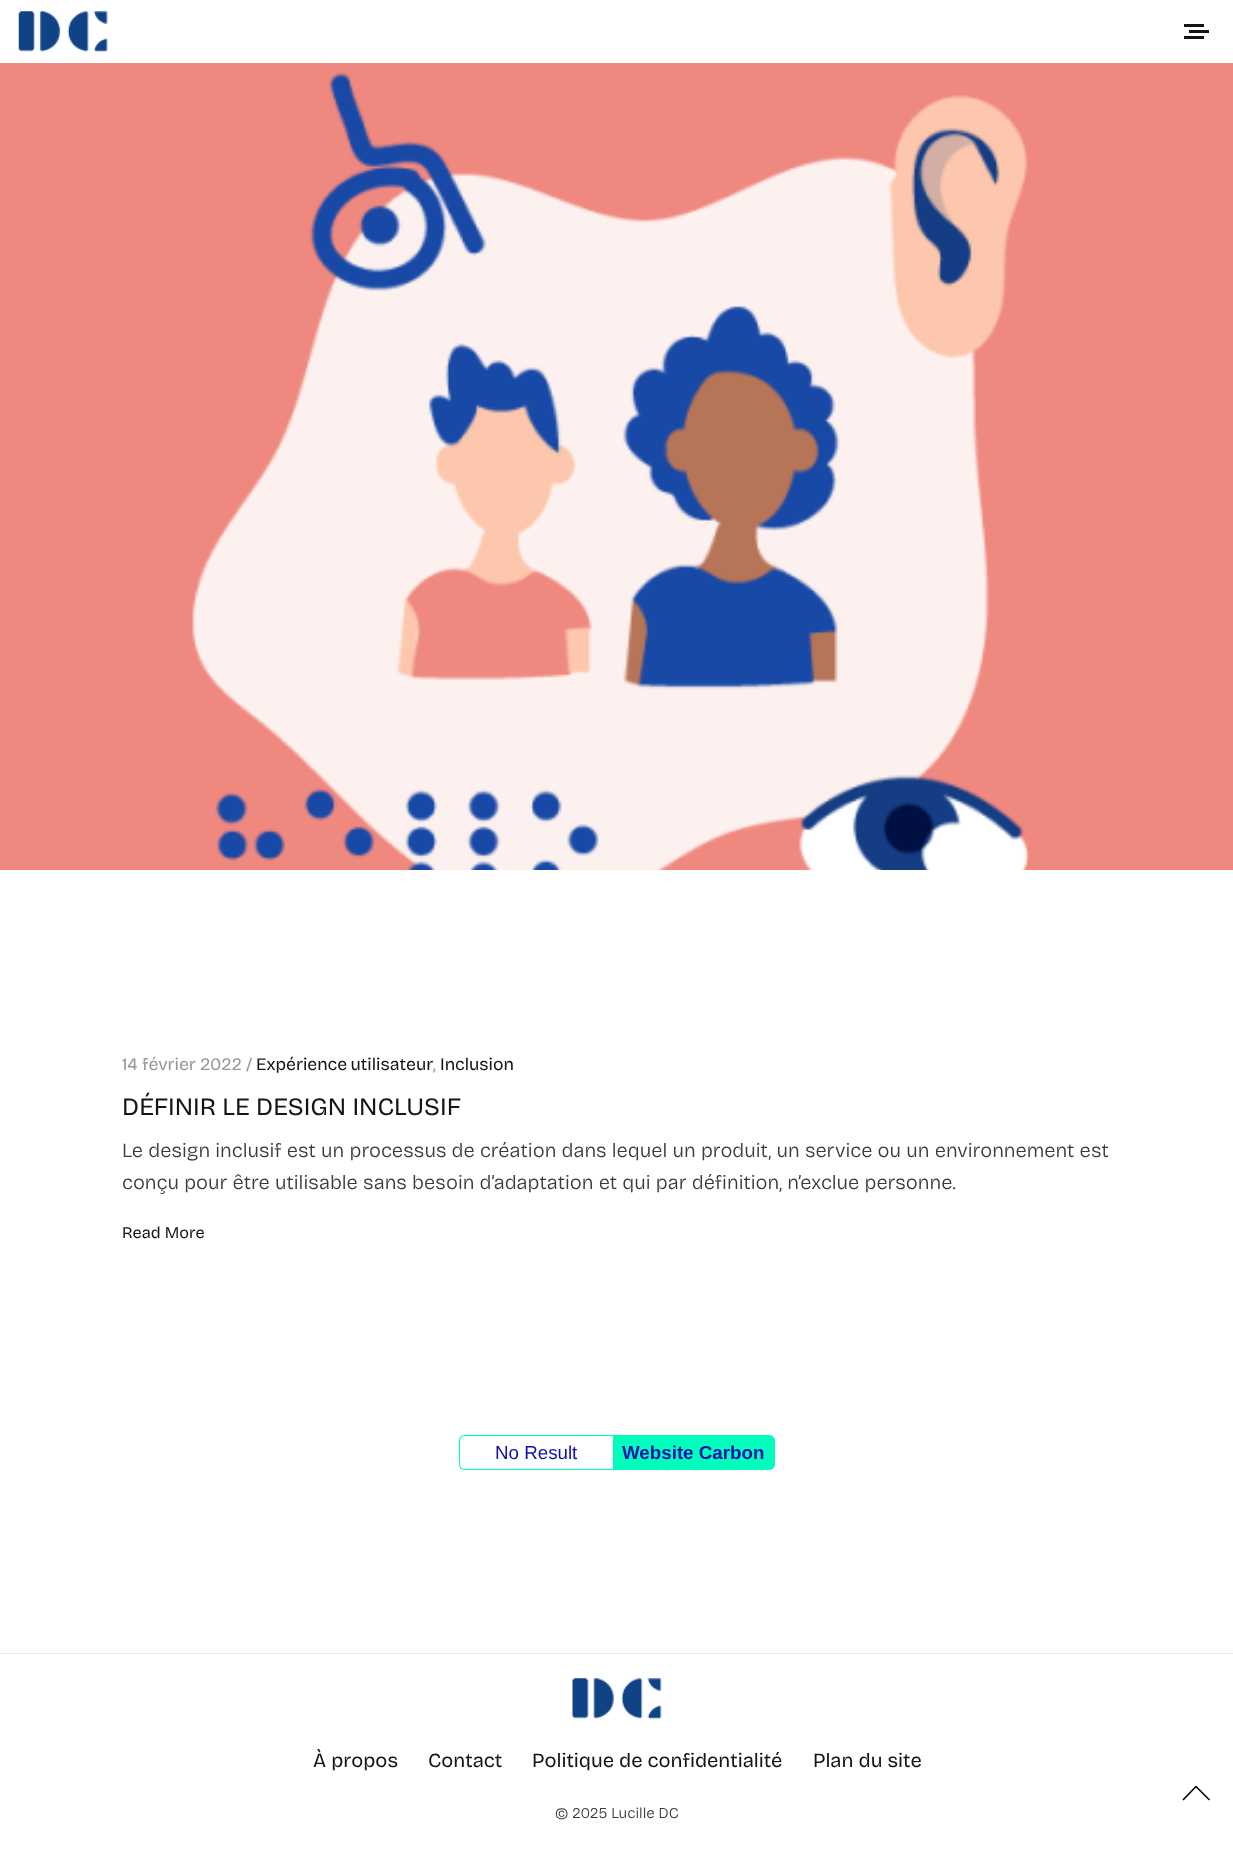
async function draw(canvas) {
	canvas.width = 1233;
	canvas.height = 1849;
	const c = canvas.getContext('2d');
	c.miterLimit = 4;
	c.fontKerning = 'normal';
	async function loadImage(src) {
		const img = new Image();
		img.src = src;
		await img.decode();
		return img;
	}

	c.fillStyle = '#fff';
	c.fillRect(0, 0, 1233, 1849);
	c.drawImage(await loadImage('img1.png'), 18, 11, 90, 41);
	for (const [x, y, w, h, color] of [
		[1184, 24, 20, 3, '#151515'],
		[1189, 30, 20, 3, '#151515'],
		[1184, 36, 20, 3, '#151515'],
	]) {
		c.fillStyle = color;
		c.fillRect(x, y, w, h);
	}
	c.drawImage(await loadImage('img2.png'), 0, 63, 1233, 807);
	c.font = '17.5px Bricolage Grotesque';
	c.fillStyle = '#969696';
	c.fillText('14 février 2022 /', 122, 1070);
	c.wordSpacing = '-1px';
	c.fillStyle = '#151515';
	c.fillText('Expérience utilisateur', 256, 1070);
	c.wordSpacing = '0px';
	c.fillStyle = '#969696';
	c.fillText(',', 433, 1070);
	c.fillStyle = '#151515';
	c.fillText('Inclusion', 440, 1070);
	c.font = '25px Bricolage Grotesque';
	c.fillText('DÉFINIR LE DESIGN INCLUSIF', 122, 1115);
	c.font = '300 20px Bricolage Grotesque';
	c.fillStyle = '#3a3a3a';
	c.fillText('Le design inclusif est un processus de création dans lequel un produit, un service ou un environnement est', 122, 1157);
	c.fillText('conçu pour être utilisable sans besoin d’adaptation et qui par définition, n’exclue personne.', 122, 1189);
	c.font = '16.25px Bricolage Grotesque';
	c.fillStyle = '#151515';
	c.fillText('Read More', 122, 1238);
	c.fillStyle = '#00ffbc';
	c.beginPath();
	c.moveTo(464, 1435);
	c.lineTo(612, 1435);
	c.lineTo(612, 1470);
	c.lineTo(464, 1470);
	c.bezierCurveTo(461, 1470, 459, 1467, 459, 1464);
	c.lineTo(459, 1441);
	c.bezierCurveTo(459, 1438, 461, 1435, 464, 1435);
	c.closePath();
	c.moveTo(464, 1436);
	c.lineTo(612, 1436);
	c.lineTo(612, 1469);
	c.lineTo(464, 1469);
	c.bezierCurveTo(462, 1469, 460, 1467, 460, 1464);
	c.lineTo(460, 1441);
	c.bezierCurveTo(460, 1438, 462, 1436, 464, 1436);
	c.closePath();
	c.fill('evenodd');
	c.font = '18.75px Liberation Sans';
	c.fillStyle = '#0e11a8';
	c.fillText('No Result', 495, 1459);
	c.fillStyle = '#00ffbc';
	c.beginPath();
	c.roundRect(613, 1435, 162, 35, [0, 6, 6, 0]);
	c.fill();
	c.beginPath();
	c.moveTo(612, 1435);
	c.lineTo(769, 1435);
	c.bezierCurveTo(772, 1435, 775, 1438, 775, 1441);
	c.lineTo(775, 1464);
	c.bezierCurveTo(775, 1467, 772, 1470, 769, 1470);
	c.lineTo(612, 1470);
	c.closePath();
	c.moveTo(612, 1436);
	c.lineTo(769, 1436);
	c.bezierCurveTo(772, 1436, 774, 1438, 774, 1441);
	c.lineTo(774, 1464);
	c.bezierCurveTo(774, 1467, 772, 1469, 769, 1469);
	c.lineTo(612, 1469);
	c.closePath();
	c.fill('evenodd');
	c.font = 'bold 18.75px Liberation Sans';
	c.fillStyle = '#0e11a8';
	c.fillText('Website Carbon', 622, 1459);
	c.fillStyle = '#ebebeb';
	c.fillRect(0, 1653, 1233, 1);
	c.drawImage(await loadImage('img3.png'), 572, 1678, 90, 41);
	c.font = '20px Bricolage Grotesque';
	c.fillStyle = '#151515';
	for (const [text, x, y] of [
		['À propos', 313, 1767],
		['Contact', 428, 1767],
		['Politique de confidentialité', 532, 1767],
		['Plan du site', 813, 1767],
	]) {
		c.fillText(text, x, y);
	}
	c.font = '300 15px Bricolage Grotesque';
	c.fillStyle = '#3a3a3a';
	c.fillText('© 2025 Lucille DC', 555, 1818);
	c.beginPath();
	c.moveTo(1183, 1800);
	c.lineTo(1196, 1786.5);
	c.lineTo(1209.5, 1800);
	c.strokeStyle = '#000';
	c.lineWidth = 1.6;
	c.lineJoin = 'bevel';
	c.stroke();
}

draw(document.querySelector('canvas'));
